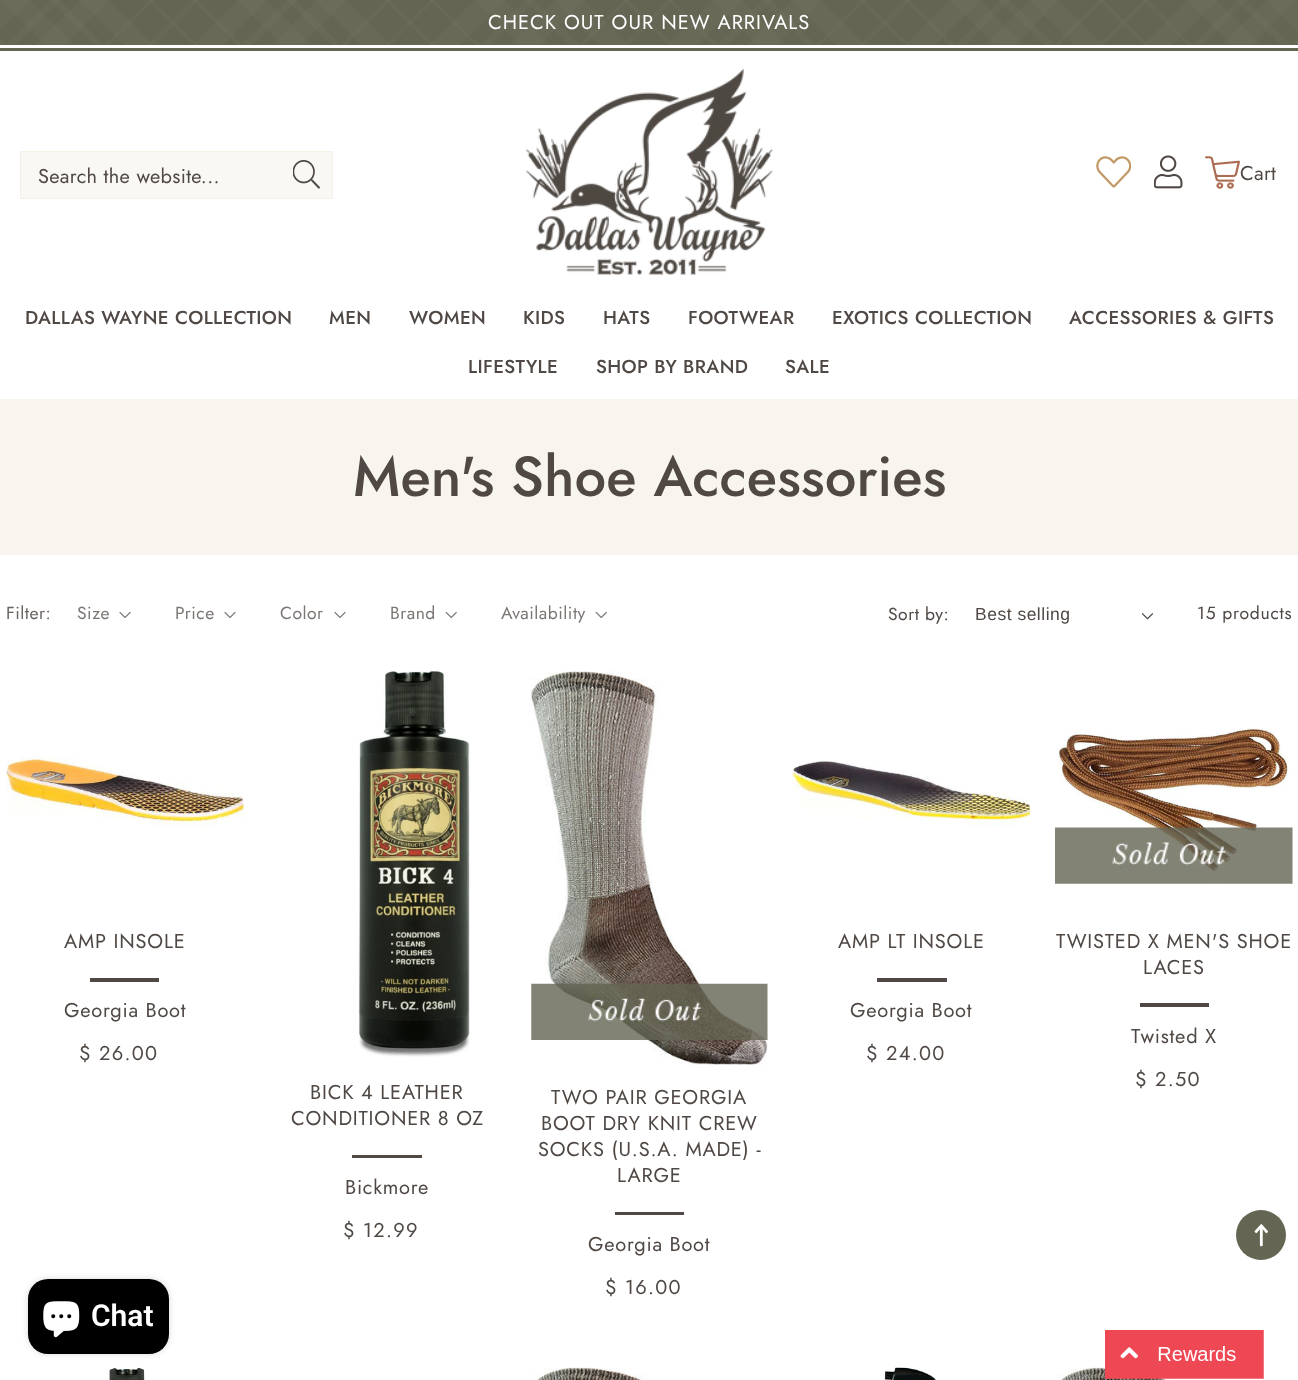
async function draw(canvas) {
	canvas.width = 1298;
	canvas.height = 1380;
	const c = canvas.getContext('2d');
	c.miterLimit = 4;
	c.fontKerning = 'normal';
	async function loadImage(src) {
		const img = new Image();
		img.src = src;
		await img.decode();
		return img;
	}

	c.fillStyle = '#fff';
	c.fillRect(0, 0, 1298, 1380);
	c.fillStyle = '#646552';
	c.fillRect(0, 0, 1298, 45);
	c.drawImage(await loadImage('img1.png'), 0, 0, 1298, 45);
	c.letterSpacing = '1px';
	c.font = '20px Jost';
	c.fillStyle = '#fff';
	c.fillText('CHECK OUT OUR NEW ARRIVALS', 488, 29);
	c.fillStyle = '#646552';
	c.fillRect(0, 48, 1298, 3);
	c.fillStyle = '#faf8f4';
	c.beginPath();
	c.rect(20.5, 151.5, 312, 47);
	c.fill();
	c.strokeStyle = '#f5f0e6';
	c.stroke();
	c.letterSpacing = '0.3px';
	c.fillStyle = '#4f4844';
	c.fillText('Search the website...', 38, 183);
	c.drawImage(await loadImage('img2.png'), 293, 160, 27, 29);
	c.drawImage(await loadImage('img3.png'), 526, 68, 247, 207);
	c.drawImage(await loadImage('img4.png'), 1096, 156, 35, 32);
	c.drawImage(await loadImage('img5.png'), 1154, 155, 29, 34);
	c.drawImage(await loadImage('img6.png'), 1205, 156, 35, 33);
	c.fillText('Cart', 1240, 180);
	c.letterSpacing = '0.4px';
	c.font = '500 18.75px Jost';
	for (const [text, x, y] of [
		['DALLAS WAYNE COLLECTION', 25, 324],
		['MEN', 329, 324],
		['WOMEN', 409, 324],
		['KIDS', 523, 324],
		['HATS', 603, 324],
		['FOOTWEAR', 688, 324],
		['EXOTICS COLLECTION', 832, 324],
		['ACCESSORIES & GIFTS', 1069, 324],
		['LIFESTYLE', 468, 373],
		['SHOP BY BRAND', 596, 373],
		['SALE', 785, 373],
	]) {
		c.fillText(text, x, y);
	}
	c.fillStyle = '#f8f4ee';
	c.fillRect(0, 399, 1298, 156);
	c.letterSpacing = '0px';
	c.font = '500 56.25px Jost';
	c.fillStyle = '#4f4844';
	c.fillText('Men\'s Shoe Accessories', 353, 496);
	c.letterSpacing = '0.5px';
	c.font = '17.5px Jost';
	c.fillStyle = '#696360';
	c.fillText('Filter:', 6, 619);
	c.fillStyle = '#7b7673';
	c.fillText('Size', 77, 619);
	c.drawImage(await loadImage('img7.png'), 119, 612, 12, 6);
	c.fillText('Price', 175, 619);
	c.drawImage(await loadImage('img7.png'), 224, 612, 12, 6);
	c.fillText('Color', 280, 619);
	c.drawImage(await loadImage('img7.png'), 334, 612, 12, 6);
	c.fillText('Brand', 390, 619);
	c.drawImage(await loadImage('img8.png'), 445, 611, 12, 8);
	c.fillText('Availability', 501, 619);
	c.drawImage(await loadImage('img8.png'), 595, 611, 12, 8);
	c.fillStyle = '#4f4844';
	c.fillText('Sort by:', 888, 620);
	c.font = '17.5px Liberation Sans';
	c.fillText('Best selling', 975, 620);
	c.drawImage(await loadImage('img9.png'), 1141, 613, 13, 7);
	c.letterSpacing = '0.75px';
	c.font = '17.5px Jost';
	c.fillText('15 products', 1197, 619);
	c.drawImage(await loadImage('img10.png'), 6, 756, 238, 71);
	c.fillRect(90, 978, 69, 4);
	c.letterSpacing = '0.8px';
	c.font = '20px Jost';
	c.fillText('AMP INSOLE', 64, 948);
	c.letterSpacing = '0.75px';
	c.fillText('Georgia Boot', 64, 1017);
	c.letterSpacing = '1.25px';
	c.fillText('$ 26.00', 79, 1060);
	c.drawImage(await loadImage('img11.png'), 792, 761, 238, 67);
	c.fillRect(877, 978, 70, 4);
	c.letterSpacing = '0.8px';
	c.fillText('AMP LT INSOLE', 838, 948);
	c.letterSpacing = '0.75px';
	c.fillText('Georgia Boot', 850, 1017);
	c.letterSpacing = '1.25px';
	c.fillText('$ 24.00', 866, 1060);
	c.drawImage(await loadImage('img12.png'), 1058, 728, 231, 144);
	c.drawImage(await loadImage('img13.png'), 1055, 827, 238, 57);
	c.fillRect(1140, 1003, 69, 4);
	c.letterSpacing = '0.8px';
	c.fillText('TWISTED X MEN\'S SHOE', 1056, 948);
	c.fillText('LACES', 1143, 974);
	c.letterSpacing = '0.75px';
	c.fillText('Twisted X', 1131, 1043);
	c.letterSpacing = '1.25px';
	c.fillText('$ 2.50', 1135, 1086);
	c.drawImage(await loadImage('img14.png'), 358, 671, 112, 386);
	c.fillRect(352, 1155, 70, 3);
	c.letterSpacing = '0.8px';
	c.fillText('BICK 4 LEATHER', 310, 1099);
	c.fillText('CONDITIONER 8 OZ', 291, 1125);
	c.letterSpacing = '0.75px';
	c.fillText('Bickmore', 345, 1194);
	c.letterSpacing = '1.25px';
	c.fillText('$ 12.99', 343, 1237);
	c.drawImage(await loadImage('img15.png'), 531, 671, 237, 394);
	c.drawImage(await loadImage('img16.png'), 531, 983, 237, 57);
	c.fillRect(615, 1212, 69, 3);
	c.letterSpacing = '0.8px';
	for (const [text, x, y] of [
		['TWO PAIR GEORGIA', 551, 1104],
		['BOOT DRY KNIT CREW', 541, 1130],
		['SOCKS (U.S.A. MADE) -', 538, 1156],
		['LARGE', 617, 1182],
	]) {
		c.fillText(text, x, y);
	}
	c.letterSpacing = '0.75px';
	c.fillText('Georgia Boot', 588, 1251);
	c.letterSpacing = '1.25px';
	c.fillText('$ 16.00', 605, 1294);
	c.drawImage(await loadImage('img17.png'), 109, 1367, 37, 13);
	c.drawImage(await loadImage('img18.png'), 532, 1367, 114, 13);
	c.drawImage(await loadImage('img19.png'), 884, 1367, 52, 13);
	c.drawImage(await loadImage('img20.png'), 1055, 1367, 115, 13);
	c.fillStyle = '#646552';
	c.beginPath();
	c.arc(1261, 1235, 25, 0, 2 * Math.PI);
	c.fill();
	c.drawImage(await loadImage('img21.png'), 1254, 1224, 14, 23);
	c.fillStyle = '#00000026';
	c.filter = 'blur(3px)';
	c.beginPath();
	c.roundRect(28, 1279, 141, 75, 20);
	c.fill();
	c.filter = 'none';
	c.fillStyle = '#000';
	c.beginPath();
	c.roundRect(28, 1279, 141, 75, 20);
	c.fill();
	c.drawImage(await loadImage('img22.png'), 43, 1301, 37, 37);
	c.letterSpacing = '0px';
	c.font = '600 30px Roboto';
	c.fillStyle = '#fff';
	c.fillText('Chat', 91, 1326);
	c.drawImage(await loadImage('img23.png'), 1105, 1330, 159, 49);
}

draw(document.querySelector('canvas'));
